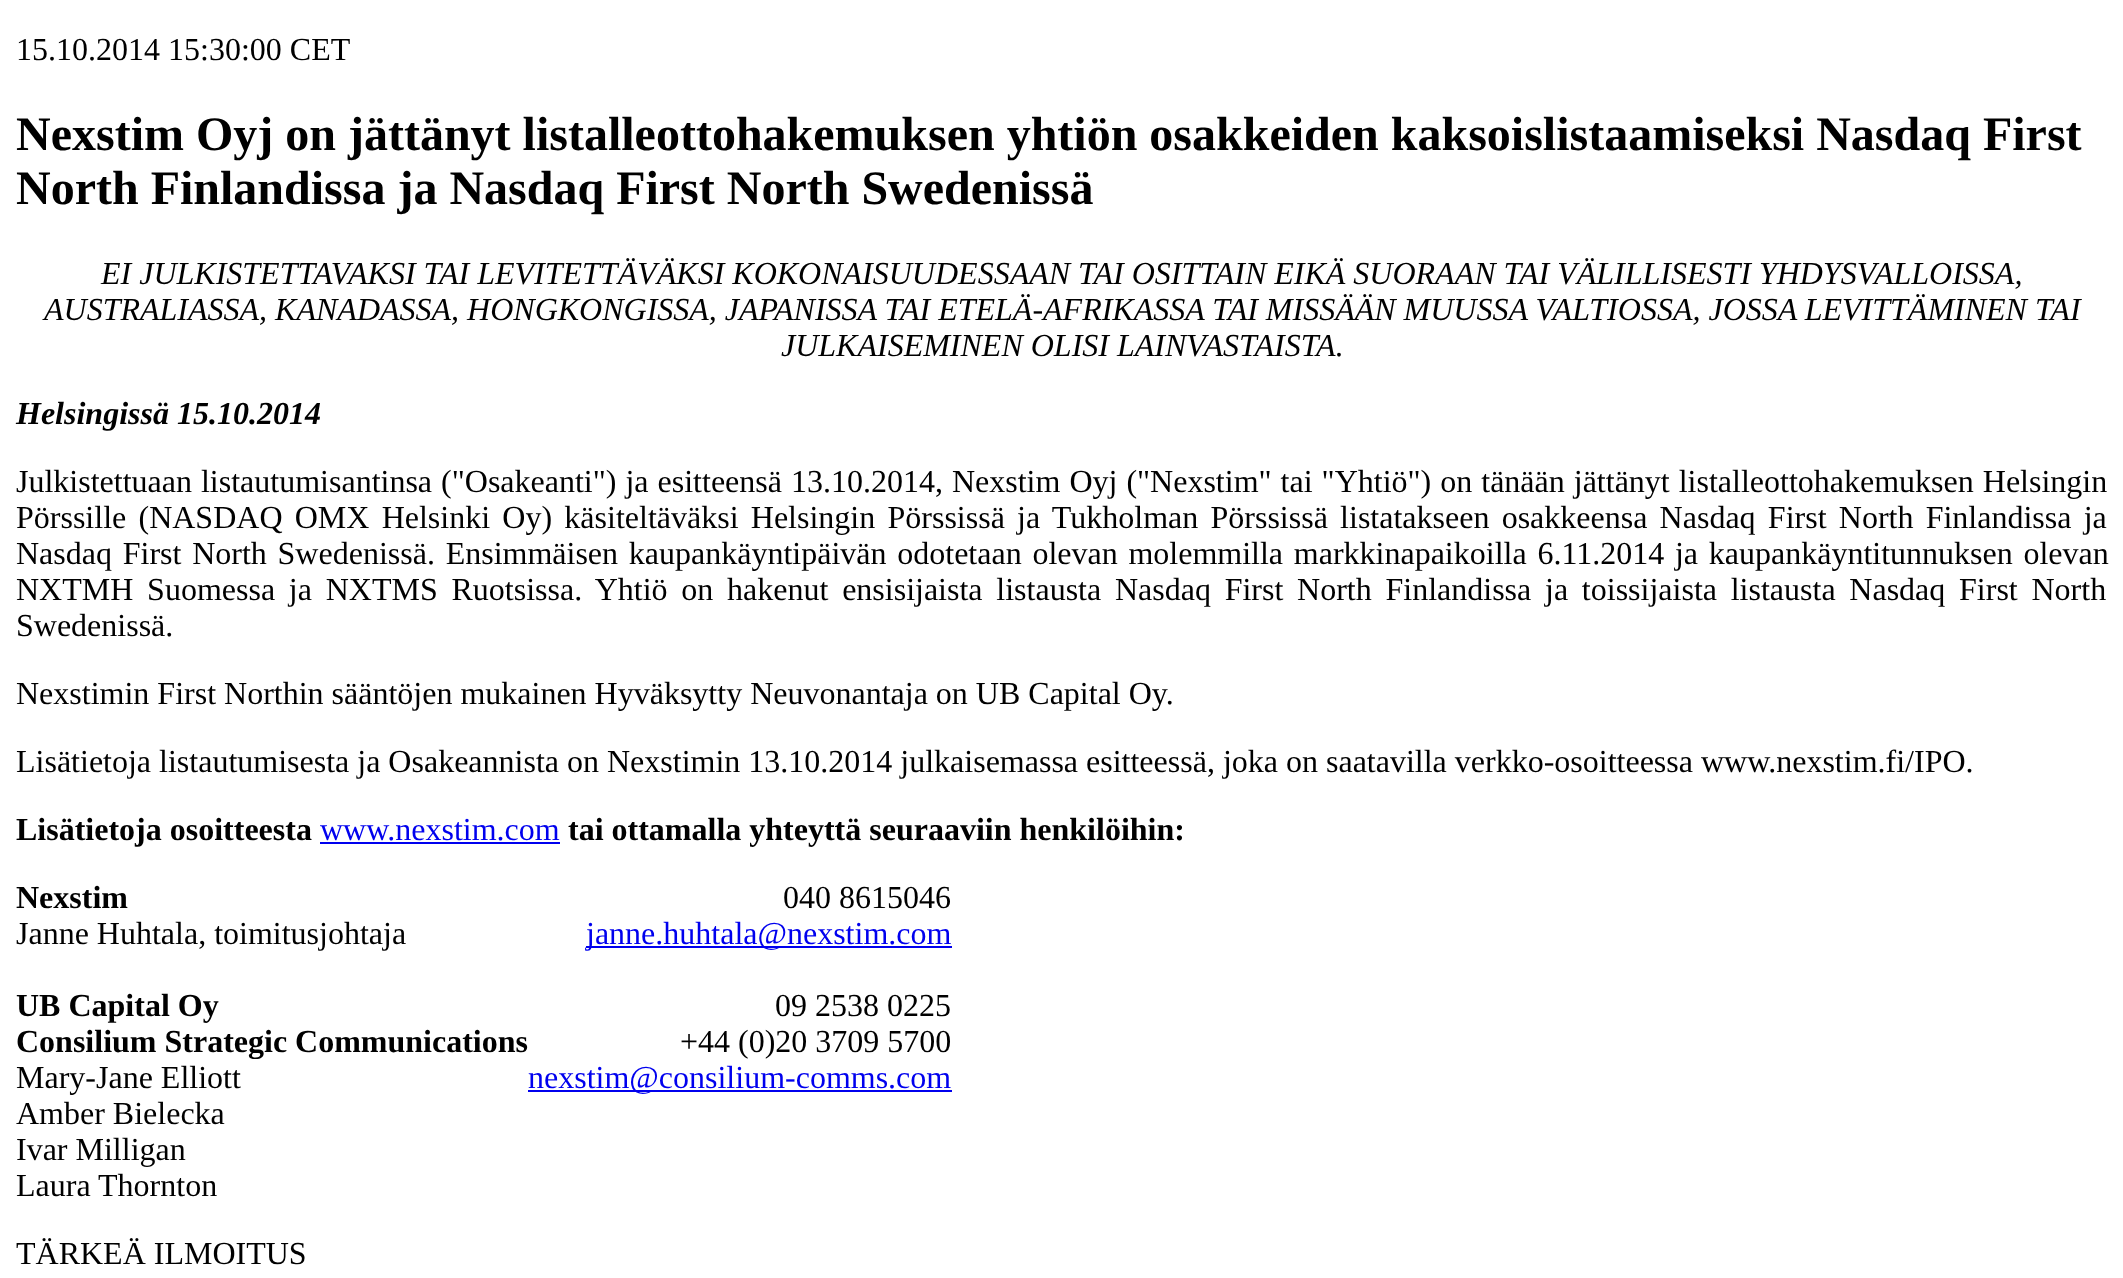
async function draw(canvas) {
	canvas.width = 2123;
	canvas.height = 1278;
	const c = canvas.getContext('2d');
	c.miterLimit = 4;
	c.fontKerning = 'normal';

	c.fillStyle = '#fff';
	c.fillRect(0, 0, 2123, 1278);
	c.font = '32px Liberation Serif';
	c.fillStyle = '#000';
	c.fillText('15.10.2014 15:30:00 CET', 16, 60);
	c.font = 'bold 48px Liberation Serif';
	c.fillText('Nexstim Oyj on jättänyt listalleottohakemuksen yhtiön osakkeiden kaksoislistaamiseksi Nasdaq First', 16, 150);
	c.fillText('North Finlandissa ja Nasdaq First North Swedenissä', 16, 204);
	c.font = 'italic 32px Liberation Serif';
	for (const [text, x, y] of [
		['EI JULKISTETTAVAKSI TAI LEVITETTÄVÄKSI KOKONAISUUDESSAAN TAI OSITTAIN EIKÄ SUORAAN TAI VÄLILLISESTI YHDYSVALLOISSA,', 101, 284],
		['AUSTRALIASSA, KANADASSA, HONGKONGISSA, JAPANISSA TAI ETELÄ-AFRIKASSA TAI MISSÄÄN MUUSSA VALTIOSSA, JOSSA LEVITTÄMINEN TAI', 44, 320],
		['JULKAISEMINEN OLISI LAINVASTAISTA.', 781, 356],
	]) {
		c.fillText(text, x, y);
	}
	c.font = 'italic bold 32px Liberation Serif';
	c.fillText('Helsingissä 15.10.2014', 16, 424);
	c.wordSpacing = '1px';
	c.font = '32px Liberation Serif';
	c.fillText('Julkistettuaan listautumisantinsa ("Osakeanti") ja esitteensä 13.10.2014, Nexstim Oyj ("Nexstim" tai "Yhtiö") on tänään jättänyt listalleottohakemuksen Helsingin', 16, 492);
	c.wordSpacing = '4.25px';
	c.fillText('Pörssille (NASDAQ OMX Helsinki Oy) käsiteltäväksi Helsingin Pörssissä ja Tukholman Pörssissä listatakseen osakkeensa Nasdaq First North Finlandissa ja', 16, 528);
	c.wordSpacing = '2.75px';
	c.fillText('Nasdaq First North Swedenissä. Ensimmäisen kaupankäyntipäivän odotetaan olevan molemmilla markkinapaikoilla 6.11.2014 ja kaupankäyntitunnuksen olevan', 16, 564);
	c.wordSpacing = '5.75px';
	c.fillText('NXTMH Suomessa ja NXTMS Ruotsissa. Yhtiö on hakenut ensisijaista listausta Nasdaq First North Finlandissa ja toissijaista listausta Nasdaq First North', 16, 600);
	c.wordSpacing = '0px';
	for (const [text, x, y] of [
		['Swedenissä.', 16, 636],
		['Nexstimin First Northin sääntöjen mukainen Hyväksytty Neuvonantaja on UB Capital Oy.', 16, 704],
		['Lisätietoja listautumisesta ja Osakeannista on Nexstimin 13.10.2014 julkaisemassa esitteessä, joka on saatavilla verkko-osoitteessa www.nexstim.fi/IPO.', 16, 772],
	]) {
		c.fillText(text, x, y);
	}
	c.font = 'bold 32px Liberation Serif';
	c.fillText('Lisätietoja osoitteesta', 16, 840);
	c.font = '32px Liberation Serif';
	c.fillStyle = '#00e';
	c.fillText('www.nexstim.com', 320, 840);
	c.fillRect(320, 842, 240, 2);
	c.font = 'bold 32px Liberation Serif';
	c.fillStyle = '#000';
	c.fillText('tai ottamalla yhteyttä seuraaviin henkilöihin:', 568, 840);
	c.fillText('Nexstim', 16, 908);
	c.font = '32px Liberation Serif';
	c.fillText('Janne Huhtala, toimitusjohtaja', 16, 944);
	c.fillText('040 8615046', 783, 908);
	c.fillStyle = '#00e';
	c.fillRect(586, 946, 366, 2);
	c.fillText('janne.huhtala@nexstim.com', 586, 944);
	c.font = 'bold 32px Liberation Serif';
	c.fillStyle = '#000';
	c.fillText('UB Capital Oy', 16, 1016);
	c.font = '32px Liberation Serif';
	c.fillText('09 2538 0225', 775, 1016);
	c.font = 'bold 32px Liberation Serif';
	c.fillText('Consilium Strategic Communications', 16, 1052);
	c.font = '32px Liberation Serif';
	for (const [text, x, y] of [
		['Mary-Jane Elliott', 16, 1088],
		['Amber Bielecka', 16, 1124],
		['Ivar Milligan', 16, 1160],
		['Laura Thornton', 16, 1196],
		['+44 (0)20 3709 5700', 680, 1052],
	]) {
		c.fillText(text, x, y);
	}
	c.fillStyle = '#00e';
	c.fillRect(528, 1090, 424, 2);
	c.fillText('nexstim@consilium-comms.com', 528, 1088);
	c.fillStyle = '#000';
	c.fillText('TÄRKEÄ ILMOITUS', 16, 1264);
}

draw(document.querySelector('canvas'));
